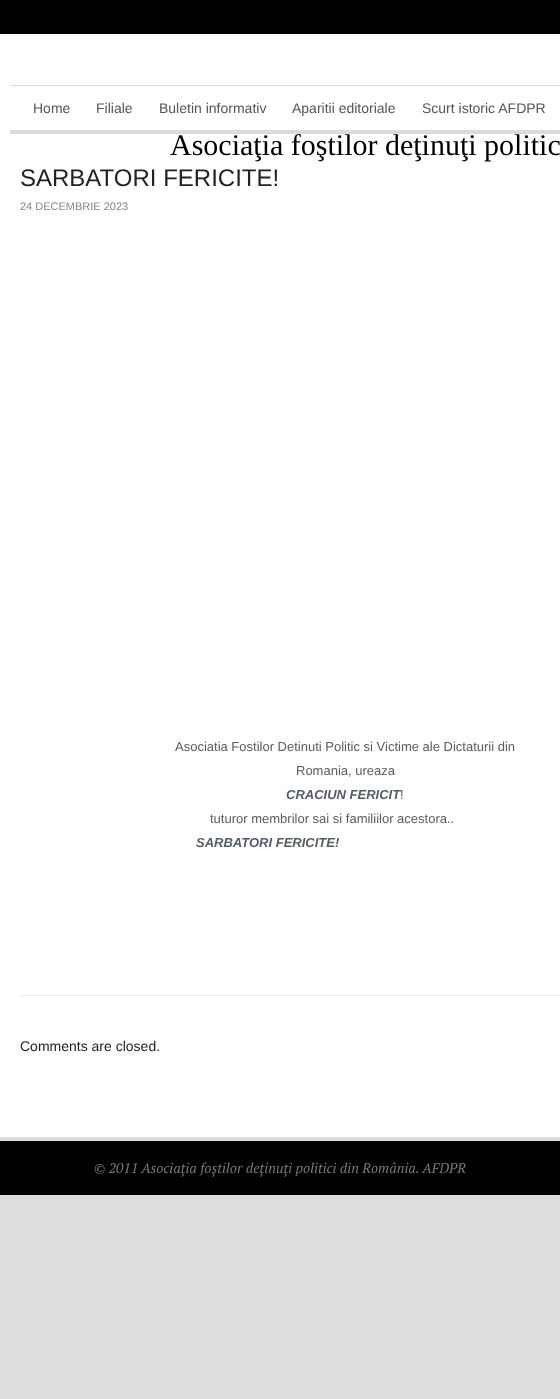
async function draw(canvas) {
	canvas.width = 560;
	canvas.height = 1399;
	const c = canvas.getContext('2d');
	c.miterLimit = 4;
	c.fontKerning = 'normal';

	c.fillStyle = '#ddd';
	c.fillRect(0, 0, 560, 1399);
	for (const [x, y, w, h, color] of [
		[0, 0, 560, 34, '#000'],
		[0, 34, 560, 1103, '#fff'],
		[10, 85, 550, 1, '#dbdbdb'],
		[10, 130, 550, 4, '#dbdbdb'],
	]) {
		c.fillStyle = color;
		c.fillRect(x, y, w, h);
	}
	c.font = '14px Liberation Sans';
	c.fillStyle = '#555';
	for (const [text, x, y] of [
		['Home', 33, 113],
		['Filiale', 96, 113],
		['Buletin informativ', 159, 113],
		['Aparitii editoriale', 292, 113],
		['Scurt istoric AFDPR', 422, 113],
	]) {
		c.fillText(text, x, y);
	}
	c.font = '30px Liberation Serif';
	c.fillStyle = '#000';
	c.fillText('Asociaţia foştilor deţinuţi politic', 170, 155);
	c.font = '24px Liberation Sans';
	c.fillStyle = '#222';
	c.fillText('SARBATORI FERICITE!', 20, 186);
	c.font = '11px Liberation Sans';
	c.fillStyle = '#868686';
	c.fillText('24 DECEMBRIE 2023', 20, 210);
	c.font = '13px Liberation Sans';
	c.fillStyle = '#555d66';
	c.fillText('Asociatia Fostilor Detinuti Politic si Victime ale Dictaturii din', 175, 751);
	c.fillText('Romania, ureaza', 296, 775);
	c.font = 'italic bold 13px Liberation Sans';
	c.fillText('CRACIUN FERICIT', 286, 799);
	c.font = '13px Liberation Sans';
	c.fillText('!', 400, 799);
	c.fillText('tuturor membrilor sai si familiilor acestora..', 210, 823);
	c.font = 'italic bold 13px Liberation Sans';
	c.fillText('SARBATORI FERICITE!', 196, 847);
	c.fillStyle = '#ededed';
	c.fillRect(20, 995, 540, 1);
	c.font = '14px Liberation Sans';
	c.fillStyle = '#222';
	c.fillText('Comments are closed.', 20, 1051);
	c.fillStyle = '#000';
	c.fillRect(0, 1141, 560, 54);
	c.font = 'italic 14px PT Serif';
	c.fillStyle = '#777';
	c.fillText('© 2011 Asociaţia foştilor deţinuţi politici din România. AFDPR', 94, 1173);
}

draw(document.querySelector('canvas'));
